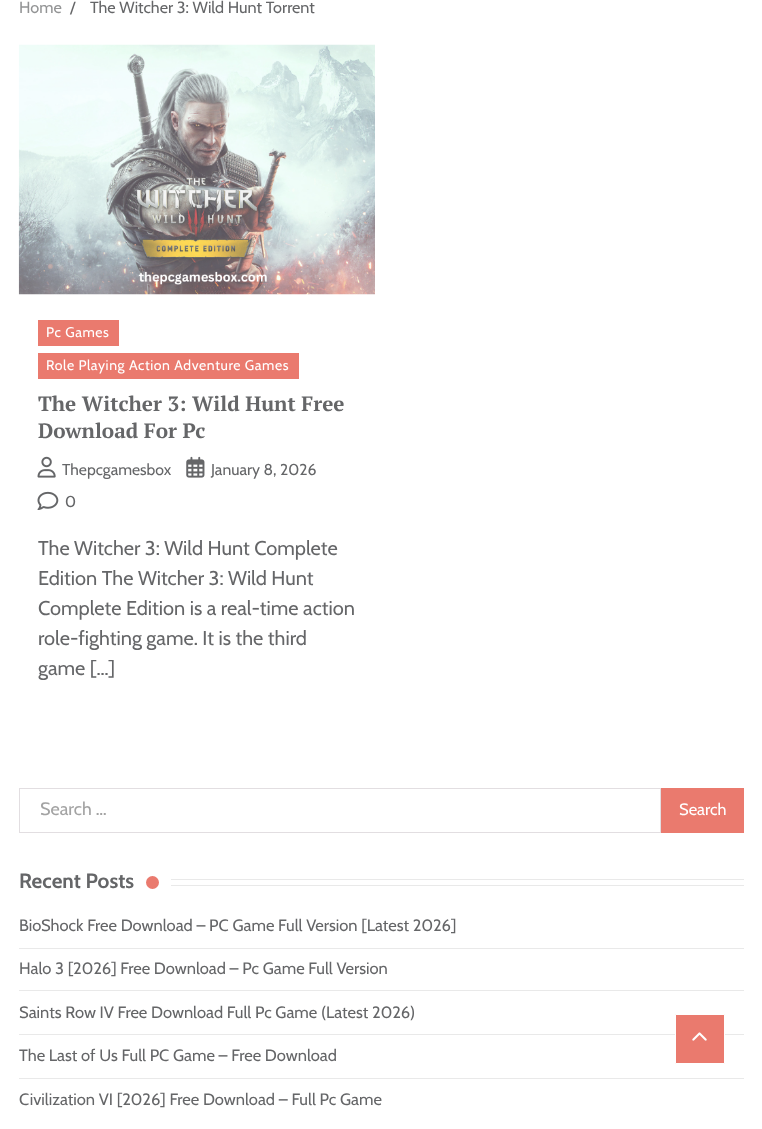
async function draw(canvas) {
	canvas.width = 762;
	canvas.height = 1129;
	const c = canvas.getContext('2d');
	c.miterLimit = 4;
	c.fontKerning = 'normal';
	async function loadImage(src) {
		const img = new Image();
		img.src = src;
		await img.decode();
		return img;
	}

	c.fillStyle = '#fff';
	c.fillRect(0, 0, 762, 1129);
	c.font = '16.25px Cabin';
	c.fillStyle = '#939495';
	c.fillText('Home', 19, 13);
	c.fillStyle = '#656668';
	c.fillText('/', 70, 13);
	c.fillText('The Witcher 3: Wild Hunt Torrent', 90, 13);
	c.drawImage(await loadImage('img1.png'), 18, 44, 357, 251);
	c.fillStyle = '#ea7a6e';
	c.fillRect(38, 320, 81, 26);
	c.letterSpacing = '0.6px';
	c.font = '14px Cabin';
	c.fillStyle = '#fff';
	c.fillText('Pc Games', 46, 337);
	c.fillStyle = '#ea7a6e';
	c.fillRect(38, 353, 261, 26);
	c.fillStyle = '#fff';
	c.fillText('Role Playing Action Adventure Games', 46, 370);
	c.letterSpacing = '0px';
	c.font = 'bold 20.75px PT Serif';
	c.fillStyle = '#656668';
	c.fillText('The Witcher 3: Wild Hunt Free', 38, 411);
	c.fillText('Download For Pc', 38, 438);
	c.drawImage(await loadImage('img2.png'), 37, 456, 19, 22);
	c.font = '15.75px Cabin';
	c.fillText('Thepcgamesbox', 62, 475);
	c.drawImage(await loadImage('img3.png'), 186, 456, 19, 22);
	c.fillText('January 8, 2026', 211, 475);
	c.drawImage(await loadImage('img4.png'), 37, 491, 22, 19);
	c.fillText('0', 65, 507);
	c.font = '20px Cabin';
	for (const [text, x, y] of [
		['The Witcher 3: Wild Hunt Complete', 38, 555],
		['Edition The Witcher 3: Wild Hunt', 38, 585],
		['Complete Edition is a real-time action', 38, 615],
		['role-fighting game. It is the third', 38, 645],
		['game […]', 38, 675],
	]) {
		c.fillText(text, x, y);
	}
	c.strokeStyle = '#e2dee1';
	c.strokeRect(19.5, 788.5, 641, 44);
	c.font = '18px Cabin';
	c.fillStyle = '#a3a3a3';
	c.fillText('Search …', 40, 815);
	c.fillStyle = '#ea7a6e';
	c.fillRect(661, 788, 83, 45);
	c.font = '16.5px Cabin';
	c.fillStyle = '#fff';
	c.fillText('Search', 679, 815);
	c.font = 'bold 20.75px Cabin';
	c.fillStyle = '#656668';
	c.fillText('Recent Posts', 19, 888);
	c.fillStyle = '#ea7a6e';
	c.beginPath();
	c.arc(152.5, 882.5, 6.5, 0, 2 * Math.PI);
	c.fill();
	for (const [x, y, w, h, color] of [
		[171, 879, 573, 1, '#e9e9e9'],
		[171, 885, 573, 1, '#e9e9e9'],
		[19, 948, 725, 1, '#e9e9e9'],
	]) {
		c.fillStyle = color;
		c.fillRect(x, y, w, h);
	}
	c.font = '16.5px Cabin';
	c.fillStyle = '#656668';
	c.fillText('BioShock Free Download – PC Game Full Version [Latest 2026]', 19, 931);
	c.fillStyle = '#e9e9e9';
	c.fillRect(19, 990, 725, 1);
	c.fillStyle = '#656668';
	c.fillText('Halo 3 [2026] Free Download – Pc Game Full Version', 19, 974);
	c.fillStyle = '#e9e9e9';
	c.fillRect(19, 1034, 725, 1);
	c.fillStyle = '#656668';
	c.fillText('Saints Row IV Free Download Full Pc Game (Latest 2026)', 19, 1018);
	c.fillStyle = '#e9e9e9';
	c.fillRect(19, 1078, 725, 1);
	c.fillStyle = '#656668';
	c.fillText('The Last of Us Full PC Game – Free Download', 19, 1061);
	c.fillText('Civilization VI [2026] Free Download – Full Pc Game', 19, 1105);
	c.fillStyle = '#ea7a6e';
	c.beginPath();
	c.rect(675.5, 1014.5, 49, 49);
	c.fill();
	c.strokeStyle = '#fff';
	c.stroke();
	c.drawImage(await loadImage('img5.png'), 692, 1032, 15, 9);
}

draw(document.querySelector('canvas'));
